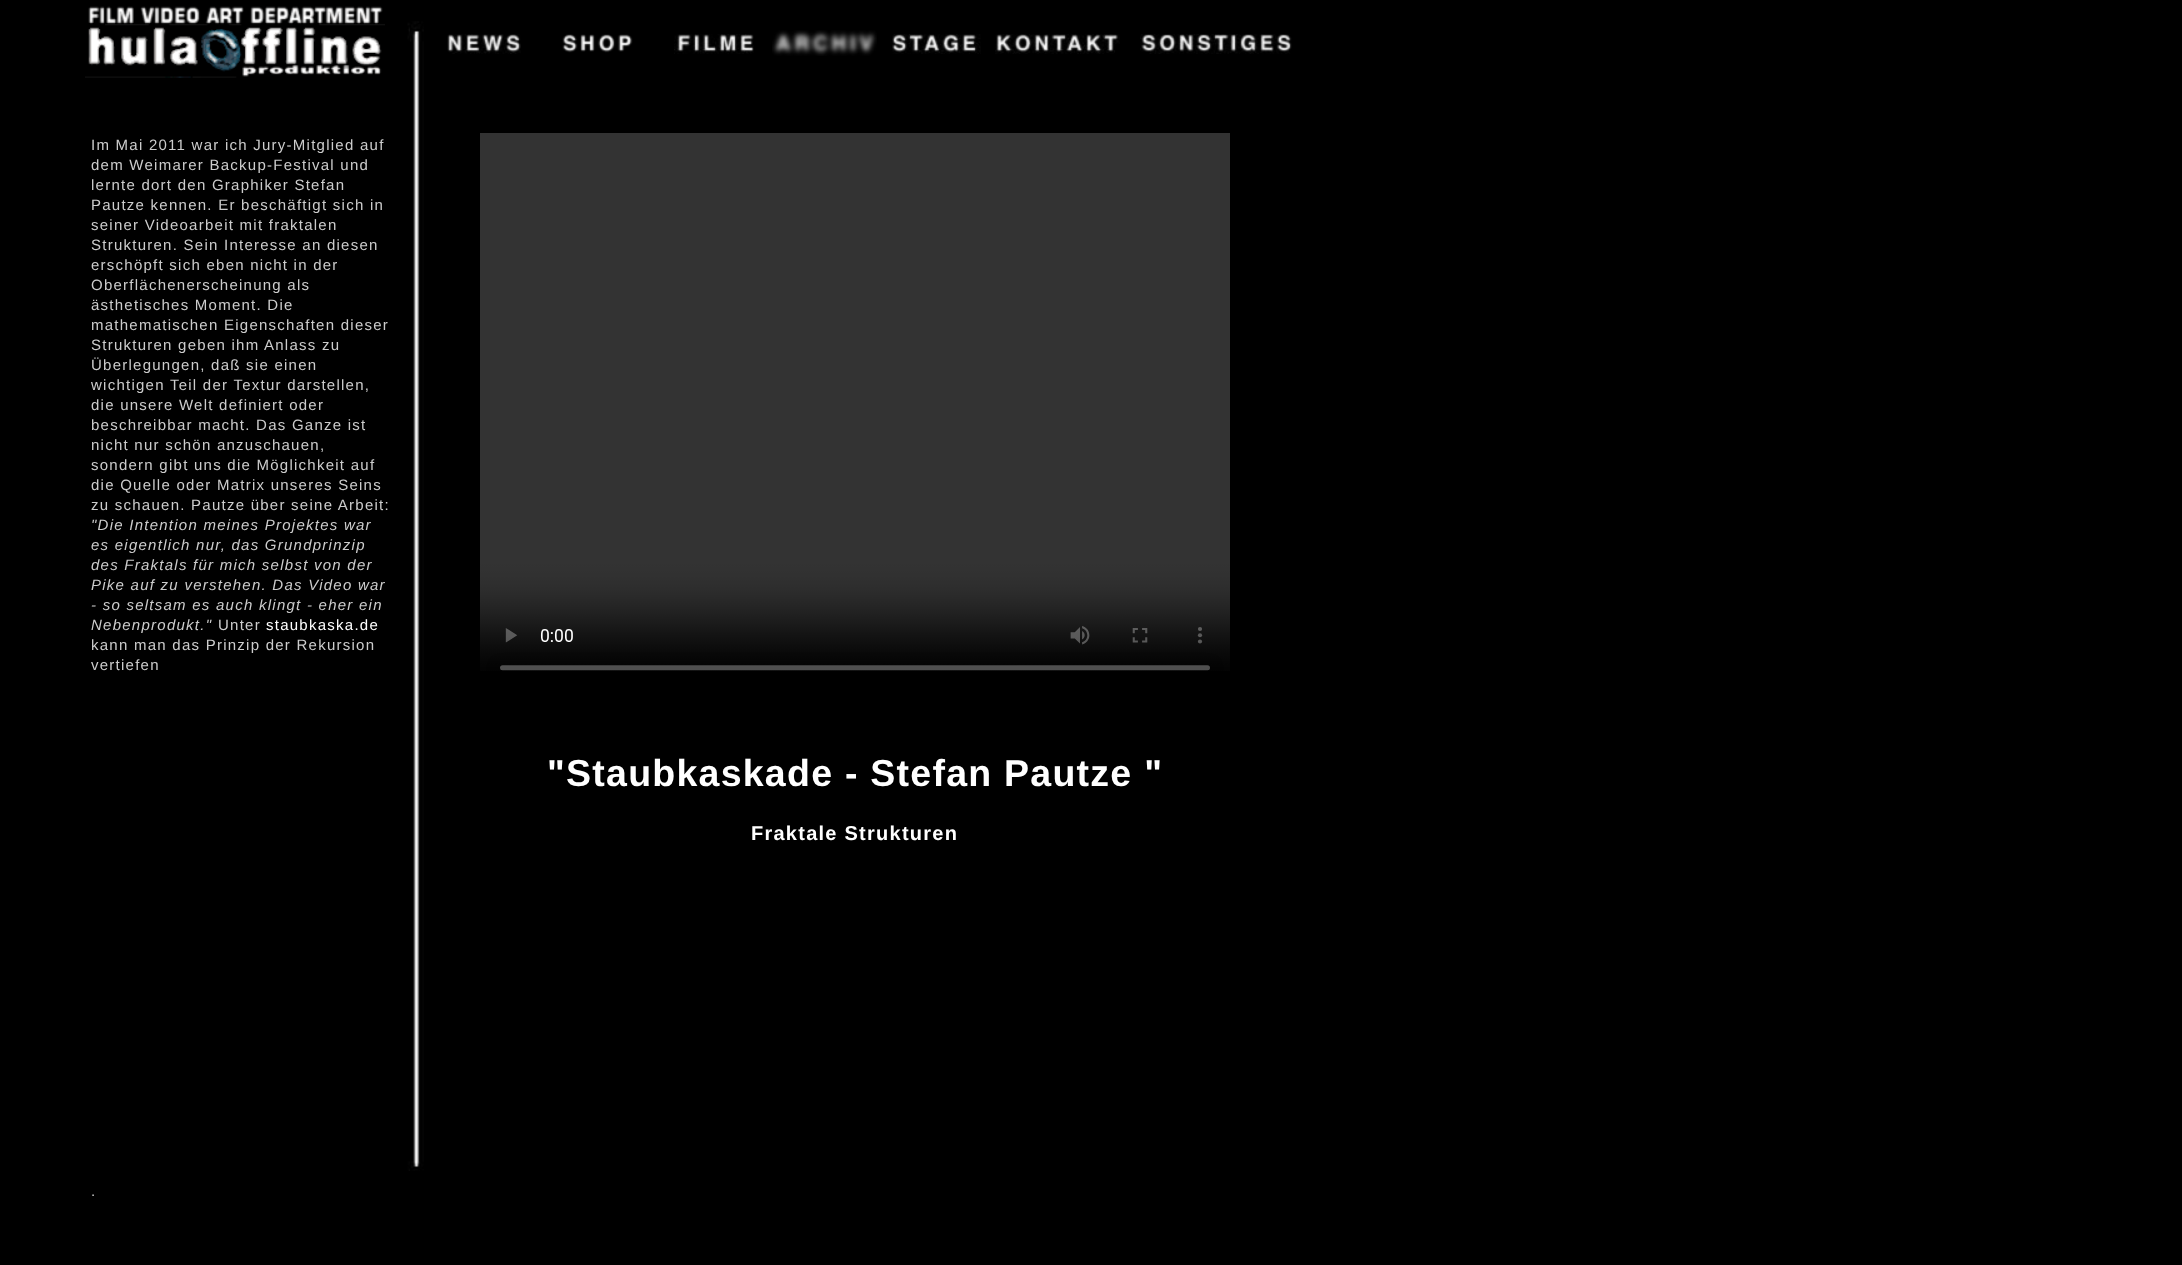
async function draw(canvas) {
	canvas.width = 2182;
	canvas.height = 1265;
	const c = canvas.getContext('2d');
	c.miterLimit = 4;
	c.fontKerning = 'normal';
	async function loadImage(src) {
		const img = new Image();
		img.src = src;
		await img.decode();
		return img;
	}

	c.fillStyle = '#000';
	c.fillRect(0, 0, 2182, 1265);
	c.drawImage(await loadImage('img1.png'), 85, 6, 300, 72);
	c.drawImage(await loadImage('img2.png'), 407, 21, 17, 1150);
	c.drawImage(await loadImage('img3.png'), 447, 34, 74, 20);
	c.drawImage(await loadImage('img4.png'), 562, 34, 71, 19);
	c.drawImage(await loadImage('img5.png'), 674, 34, 80, 20);
	c.drawImage(await loadImage('img6.png'), 772, 30, 105, 26);
	c.drawImage(await loadImage('img7.png'), 892, 34, 89, 20);
	c.drawImage(await loadImage('img8.png'), 995, 34, 125, 20);
	c.drawImage(await loadImage('img9.png'), 1140, 34, 152, 20);
	c.letterSpacing = '1.25px';
	c.font = '15px Liberation Sans';
	c.fillStyle = '#ccc';
	for (const [text, x, y] of [
		['Im Mai 2011 war ich Jury-Mitglied auf', 91, 150],
		['dem Weimarer Backup-Festival und', 91, 170],
		['lernte dort den Graphiker Stefan', 91, 190],
		['Pautze kennen. Er beschäftigt sich in', 91, 210],
		['seiner Videoarbeit mit fraktalen', 91, 230],
		['Strukturen. Sein Interesse an diesen', 91, 250],
		['erschöpft sich eben nicht in der', 91, 270],
		['Oberflächenerscheinung als', 91, 290],
		['ästhetisches Moment. Die', 91, 310],
		['mathematischen Eigenschaften dieser', 91, 330],
		['Strukturen geben ihm Anlass zu', 91, 350],
		['Überlegungen, daß sie einen', 91, 370],
		['wichtigen Teil der Textur darstellen,', 91, 390],
		['die unsere Welt definiert oder', 91, 410],
		['beschreibbar macht. Das Ganze ist', 91, 430],
		['nicht nur schön anzuschauen,', 91, 450],
		['sondern gibt uns die Möglichkeit auf', 91, 470],
		['die Quelle oder Matrix unseres Seins', 91, 490],
		['zu schauen. Pautze über seine Arbeit:', 91, 510],
	]) {
		c.fillText(text, x, y);
	}
	c.font = 'italic 15px Liberation Sans';
	for (const [text, x, y] of [
		['"Die Intention meines Projektes war', 91, 530],
		['es eigentlich nur, das Grundprinzip', 91, 550],
		['des Fraktals für mich selbst von der', 91, 570],
		['Pike auf zu verstehen. Das Video war', 91, 590],
		['- so seltsam es auch klingt - eher ein', 91, 610],
		['Nebenprodukt."', 91, 630],
	]) {
		c.fillText(text, x, y);
	}
	c.font = '15px Liberation Sans';
	c.fillText('Unter', 218, 630);
	c.fillStyle = '#fff';
	c.fillText('staubkaska.de', 266, 630);
	c.fillStyle = '#ccc';
	for (const [text, x, y] of [
		['kann man das Prinzip der Rekursion', 91, 650],
		['vertiefen', 91, 670],
		['.', 91, 1196],
	]) {
		c.fillText(text, x, y);
	}
	c.drawImage(await loadImage('img10.png'), 480, 133, 750, 538);
	c.font = 'bold 37.5px Liberation Sans';
	c.fillStyle = '#fff';
	c.fillText('"Staubkaskade - Stefan Pautze "', 547, 786);
	c.font = 'bold 20px Liberation Sans';
	c.fillText('Fraktale Strukturen', 751, 840);
}

draw(document.querySelector('canvas'));
